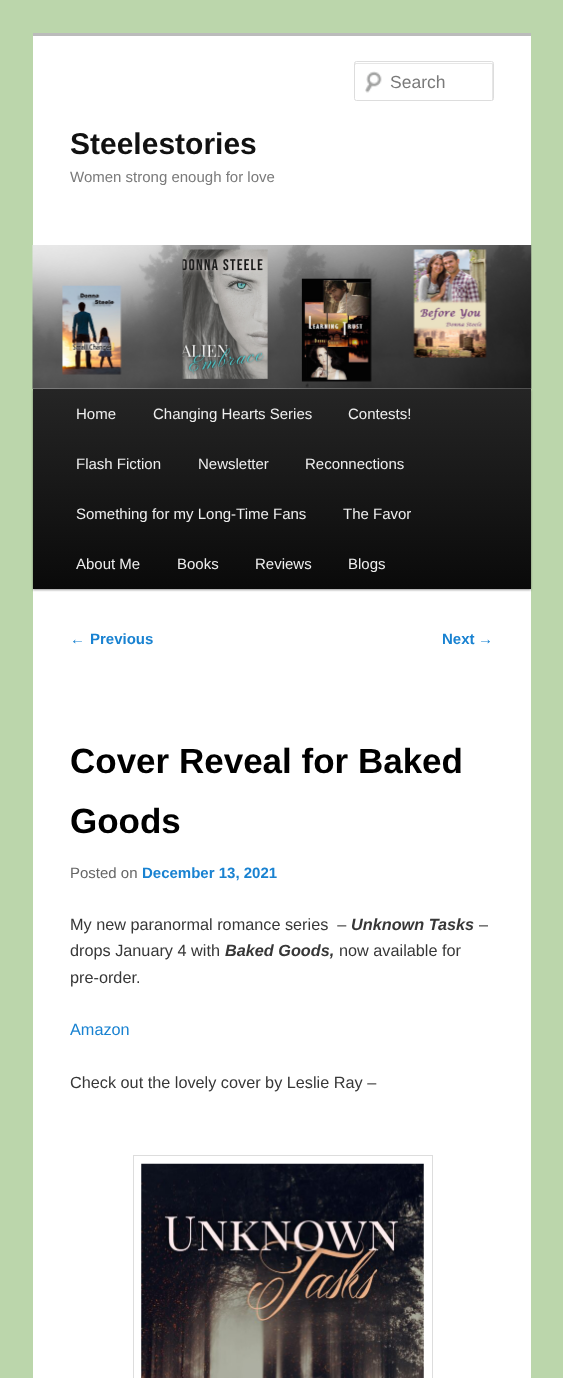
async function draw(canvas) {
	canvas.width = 563;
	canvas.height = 1378;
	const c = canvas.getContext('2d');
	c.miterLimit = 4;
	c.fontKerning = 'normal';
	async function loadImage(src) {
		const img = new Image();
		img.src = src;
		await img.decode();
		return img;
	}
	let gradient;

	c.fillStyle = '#bbd6ab';
	c.fillRect(0, 0, 563, 1378);
	c.fillStyle = '#fff';
	c.fillRect(33, 36, 498, 1342);
	c.fillStyle = '#bbb';
	c.fillRect(33, 33, 498, 3);
	c.drawImage(await loadImage('img1.png'), 365, 71, 17, 22);
	c.fillStyle = '#e6e6e6';
	c.beginPath();
	c.moveTo(356, 64);
	c.lineTo(491, 64);
	c.bezierCurveTo(492, 64, 492, 64, 492, 65);
	c.lineTo(492, 100);
	c.bezierCurveTo(493, 100, 493, 100, 493, 99);
	c.lineTo(493, 64);
	c.bezierCurveTo(493, 63, 493, 63, 492, 63);
	c.lineTo(356, 63);
	c.bezierCurveTo(355, 63, 355, 63, 355, 64);
	c.lineTo(355, 65);
	c.closePath();
	c.fill();
	c.beginPath();
	c.roundRect(354.5, 61.5, 139, 39, 2);
	c.strokeStyle = '#ddd';
	c.stroke();
	c.font = '17.5px Liberation Sans';
	c.fillStyle = '#7a7a7a';
	c.fillText('Search', 390, 88);
	c.font = 'bold 30px Liberation Sans';
	c.fillStyle = '#111';
	c.fillText('Steelestories', 70, 154);
	c.font = '15px Liberation Sans';
	c.fillStyle = '#7a7a7a';
	c.fillText('Women strong enough for love', 70, 182);
	c.fillStyle = '#00000066';
	c.filter = 'blur(1px)';
	c.beginPath();
	c.rect(33, 390, 498, 200);
	c.fill();
	c.filter = 'none';
	c.drawImage(await loadImage('img2.png'), 32, 245, 500, 144);
	gradient = c.createLinearGradient(282, 389, 282, 589);
	gradient.addColorStop(0, '#252525');
	gradient.addColorStop(1, '#0a0a0a');
	c.fillStyle = gradient;
	c.fillRect(33, 389, 498, 200);
	c.fillStyle = '#eee';
	for (const [text, x, y] of [
		['Home', 76, 419],
		['Changing Hearts Series', 153, 419],
		['Contests!', 348, 419],
		['Flash Fiction', 76, 469],
		['Newsletter', 198, 469],
		['Reconnections', 305, 469],
		['Something for my Long-Time Fans', 76, 519],
		['The Favor', 343, 519],
		['About Me', 76, 569],
		['Books', 177, 569],
		['Reviews', 255, 569],
		['Blogs', 348, 569],
	]) {
		c.fillText(text, x, y);
	}
	c.fillStyle = '#1982d1';
	c.fillText('←', 70, 644);
	c.font = 'bold 15px Liberation Sans';
	c.fillText('Previous', 90, 644);
	c.fillText('Next', 442, 644);
	c.font = '15px Liberation Sans';
	c.fillText('→', 478, 644);
	c.font = 'bold 35px Liberation Sans';
	c.fillStyle = '#000';
	c.fillText('Cover Reveal for Baked', 70, 773);
	c.fillText('Goods', 70, 833);
	c.font = '15px Liberation Sans';
	c.fillStyle = '#666';
	c.fillText('Posted on', 70, 878);
	c.font = 'bold 15px Liberation Sans';
	c.fillStyle = '#1982d1';
	c.fillText('December 13, 2021', 142, 878);
	c.font = '16.25px Liberation Sans';
	c.fillStyle = '#373737';
	c.fillText('My new paranormal romance series  –', 70, 930);
	c.font = 'italic bold 16.25px Liberation Sans';
	c.fillText('Unknown Tasks', 351, 930);
	c.font = '16.25px Liberation Sans';
	c.fillText('–', 479, 930);
	c.fillText('drops January 4 with', 70, 956);
	c.font = 'italic bold 16.25px Liberation Sans';
	c.fillText('Baked Goods,', 225, 956);
	c.font = '16.25px Liberation Sans';
	c.fillText('now available for', 339, 956);
	c.fillText('pre-order.', 70, 983);
	c.fillStyle = '#1982d1';
	c.fillText('Amazon', 70, 1035);
	c.fillStyle = '#373737';
	c.fillText('Check out the lovely cover by Leslie Ray –', 70, 1088);
	c.strokeRect(133.5, 1155.5, 299, 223);
	c.drawImage(await loadImage('img3.png'), 141, 1163, 283, 215);
}

draw(document.querySelector('canvas'));
